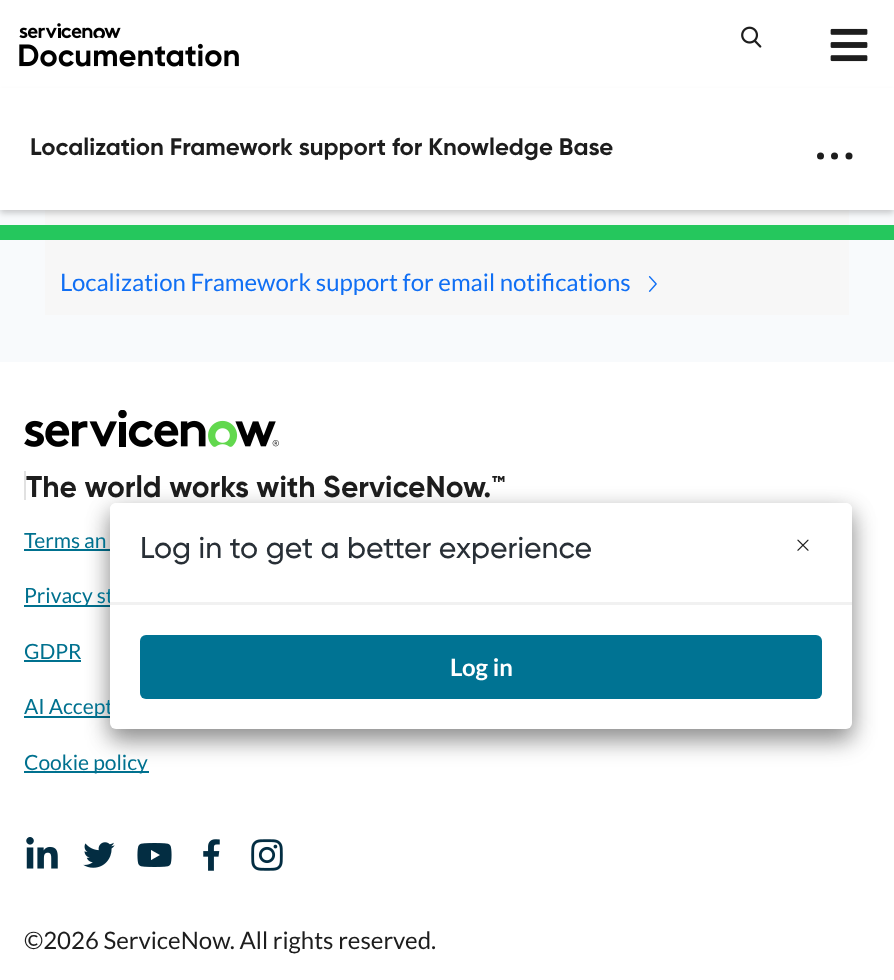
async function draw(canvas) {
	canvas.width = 894;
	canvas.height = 980;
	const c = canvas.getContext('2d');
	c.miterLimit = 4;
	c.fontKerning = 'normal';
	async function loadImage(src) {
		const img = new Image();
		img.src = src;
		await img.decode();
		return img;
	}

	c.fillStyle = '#fff';
	c.fillRect(0, 0, 894, 980);
	c.drawImage(await loadImage('img1.png'), 19, 23, 220, 44);
	c.drawImage(await loadImage('img2.png'), 741, 26, 21, 22);
	c.drawImage(await loadImage('img3.png'), 830, 28, 38, 34);
	c.fillStyle = '#f8fafc';
	c.fillRect(0, 210, 894, 152);
	c.fillStyle = '#f7f7f7';
	c.fillRect(45, 210, 804, 105);
	c.fillStyle = '#00000033';
	c.filter = 'blur(3px)';
	c.beginPath();
	c.rect(0, 93, 894, 120);
	c.fill();
	c.filter = 'none';
	c.fillStyle = '#fff';
	c.fillRect(0, 88, 894, 122);
	c.font = 'bold 24px Gilroy';
	c.fillStyle = '#1d1d1d';
	c.fillText('Localization Framework support for Knowledge Base', 30, 155);
	c.beginPath();
	c.arc(820.5, 156, 3.5, 0, 2 * Math.PI);
	c.fill();
	c.beginPath();
	c.arc(834.5, 156, 3.5, 0, 2 * Math.PI);
	c.fill();
	c.beginPath();
	c.arc(849, 156, 3.5, 0, 2 * Math.PI);
	c.fill();
	c.fillStyle = '#25c75d';
	c.fillRect(0, 225, 894, 15);
	c.font = '24px Lato';
	c.fillStyle = '#106ff4';
	c.fillText('Localization Framework support for email notifications', 60, 291);
	c.drawImage(await loadImage('img4.png'), 648, 276, 9, 16);
	for (const [x, y, w, h, color] of [
		[24, 549, 86, 2, '#00718f'],
		[24, 605, 86, 2, '#00718f'],
		[24, 660, 57, 2, '#00718f'],
		[24, 716, 86, 2, '#00718f'],
	]) {
		c.fillStyle = color;
		c.fillRect(x, y, w, h);
	}
	c.fillStyle = '#00000040';
	c.filter = 'blur(11px)';
	c.beginPath();
	c.roundRect(110, 510, 742, 227, 6);
	c.fill();
	c.filter = 'none';
	c.fillStyle = '#00718f';
	c.fillRect(24, 771, 125, 2);
	c.fillStyle = '#00000045';
	c.filter = 'blur(12px)';
	c.beginPath();
	c.roundRect(110, 515, 742, 226, 6);
	c.fill();
	c.filter = 'none';
	c.font = '21px Lato';
	c.fillStyle = '#00718f';
	c.fillText('Privacy st', 24, 603);
	c.fillText('AI Accept', 24, 714);
	c.fillStyle = '#fff';
	c.beginPath();
	c.roundRect(110, 503, 742, 226, 6);
	c.fill();
	c.beginPath();
	c.roundRect(110, 503, 742, 100, [6, 6, 0, 0]);
	c.fill();
	c.fillStyle = '#f1f1f1';
	c.fillRect(110, 602, 742, 3);
	c.font = '500 30px Gilroy';
	c.fillStyle = '#282f36';
	c.fillText('Log in to get a better experience', 140, 558);
	c.drawImage(await loadImage('img5.png'), 797, 539, 12, 12);
	c.fillStyle = '#007393';
	c.beginPath();
	c.roundRect(140, 635, 682, 64, 6);
	c.fill();
	c.font = 'bold 24px Lato';
	c.fillStyle = '#fff';
	c.fillText('Log in', 450, 676);
	c.drawImage(await loadImage('img6.png'), 24, 410, 255, 37);
	c.fillStyle = '#e1e1e1';
	c.fillRect(24, 471, 2, 29);
	c.font = 'bold 30px Gilroy';
	c.fillStyle = '#1d1d1d';
	c.fillText('The world works with ServiceNow.™', 26, 497);
	c.font = '21px Lato';
	c.fillStyle = '#00718f';
	for (const [text, x, y] of [
		['Terms an', 24, 548],
		['GDPR', 24, 659],
		['Cookie policy', 24, 770],
	]) {
		c.fillText(text, x, y);
	}
	c.drawImage(await loadImage('img7.png'), 26, 837, 32, 32);
	c.drawImage(await loadImage('img8.png'), 83, 842, 32, 26);
	c.drawImage(await loadImage('img9.png'), 137, 843, 35, 24);
	c.drawImage(await loadImage('img10.png'), 203, 839, 17, 32);
	c.drawImage(await loadImage('img11.png'), 251, 839, 32, 32);
	c.font = '24px Lato';
	c.fillStyle = '#1d1d1d';
	c.fillText('©2026 ServiceNow. All rights reserved.', 24, 949);
}

draw(document.querySelector('canvas'));
